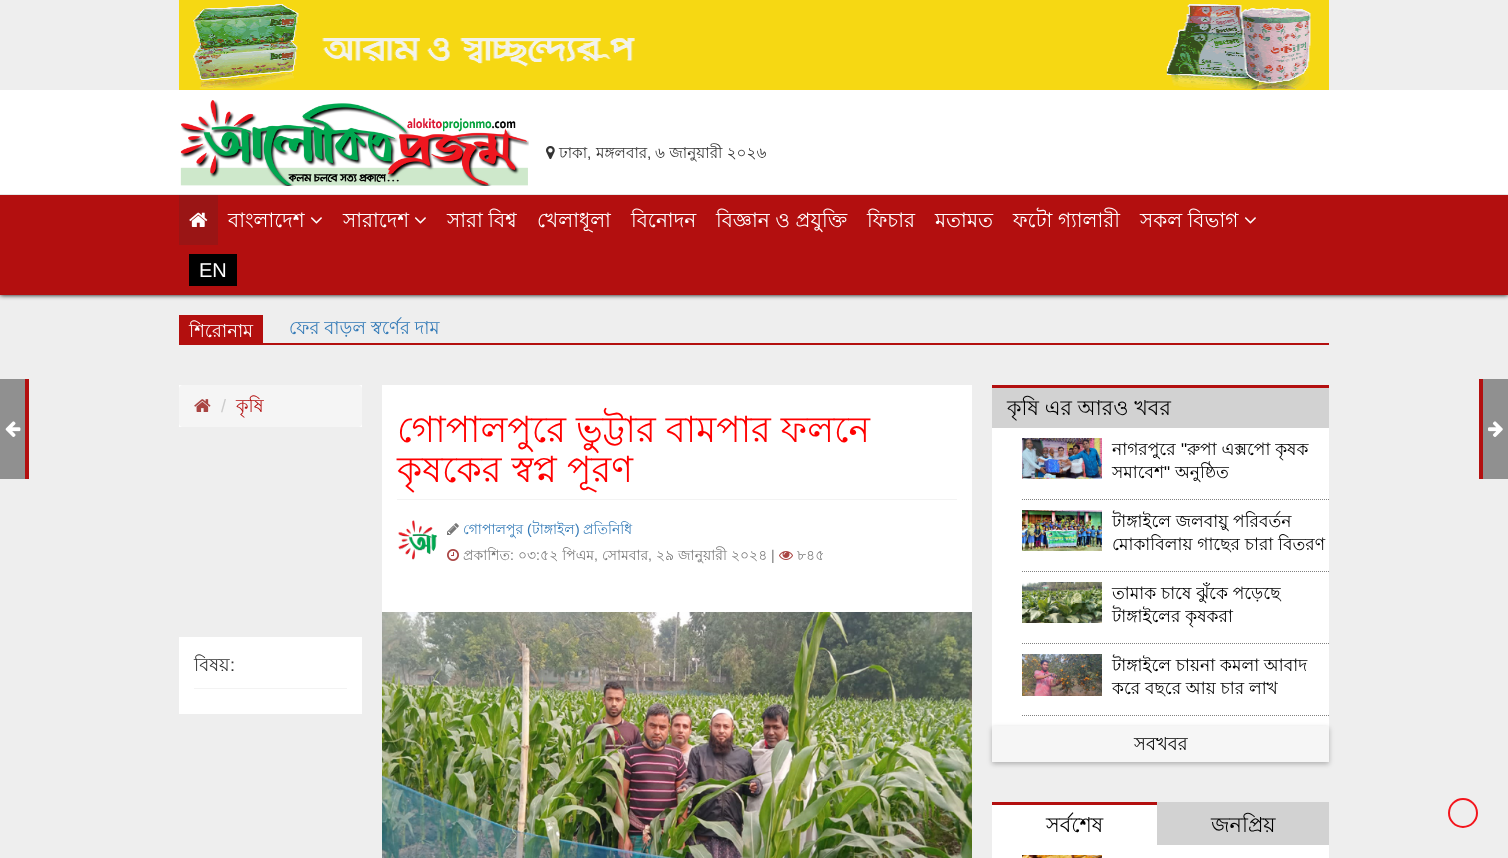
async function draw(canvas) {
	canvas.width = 1508;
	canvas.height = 858;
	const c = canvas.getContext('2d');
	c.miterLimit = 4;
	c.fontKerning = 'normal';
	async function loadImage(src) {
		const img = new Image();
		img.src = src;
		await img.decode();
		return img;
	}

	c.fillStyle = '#eee';
	c.fillRect(0, 0, 1508, 858);
	c.drawImage(await loadImage('img1.png'), 179, 0, 1150, 90);
	c.fillStyle = '#000';
	c.filter = 'blur(2.5px)';
	c.beginPath();
	c.rect(0, 195, 1508, 100);
	c.fill();
	c.filter = 'none';
	c.fillStyle = '#fff';
	c.fillRect(0, 90, 1508, 104);
	c.fillStyle = '#e7e7e7';
	c.fillRect(0, 194, 1508, 1);
	c.drawImage(await loadImage('img2.png'), 180, 100, 349, 86);
	c.drawImage(await loadImage('img3.png'), 546, 146, 9, 14);
	c.font = '15.25px Lohit Bengali';
	c.fillStyle = '#333';
	c.fillText('ঢাকা', 559, 158);
	c.font = '15.25px Liberation Sans';
	c.fillText(',', 587, 158);
	c.font = '15.25px Lohit Bengali';
	c.fillText('মঙ্গলবার', 596, 158);
	c.font = '15.25px Liberation Sans';
	c.fillText(',', 647, 158);
	c.font = '15.25px Lohit Bengali';
	c.fillText('৬ জানুয়ারী ২০২৬', 655, 158);
	c.fillStyle = '#b30f0f';
	c.fillRect(0, 195, 1508, 100);
	c.fillStyle = '#9a1515';
	c.fillRect(179, 195, 39, 50);
	c.drawImage(await loadImage('img4.png'), 189, 212, 19, 15);
	c.font = '20px Lohit Bengali';
	c.fillStyle = '#fff';
	c.fillText('বাংলাদেশ', 228, 227);
	c.drawImage(await loadImage('img5.png'), 310, 217, 12, 7);
	c.fillText('সারাদেশ', 343, 227);
	c.drawImage(await loadImage('img5.png'), 414, 217, 12, 7);
	for (const [text, x, y] of [
		['সারা বিশ্ব', 447, 227],
		['খেলাধূলা', 537, 227],
		['বিনোদন', 631, 227],
		['বিজ্ঞান ও প্রযুক্তি', 716, 227],
		['ফিচার', 867, 227],
		['মতামত', 935, 227],
		['ফটো গ্যালারী', 1013, 227],
		['সকল বিভাগ', 1140, 227],
	]) {
		c.fillText(text, x, y);
	}
	c.drawImage(await loadImage('img5.png'), 1244, 217, 12, 7);
	c.fillStyle = '#000';
	c.fillRect(189, 254, 48, 32);
	c.font = '20px Liberation Sans';
	c.fillStyle = '#fff';
	c.fillText('EN', 199, 277);
	c.fillStyle = '#b30f0e';
	c.fillRect(179, 343, 1150, 2);
	c.fillRect(179, 315, 84, 28);
	c.font = '18px Lohit Bengali';
	c.fillStyle = '#fff';
	c.fillText('শিরোনাম', 189, 337);
	c.fillStyle = '#337ab7';
	c.fillText('ফের বাড়ল স্বর্ণের দাম', 289, 334);
	c.fillStyle = '#909090';
	c.fillRect(0, 379, 25, 100);
	c.drawImage(await loadImage('img6.png'), 5, 421, 16, 16);
	for (const [x, y, w, h, color] of [
		[25, 379, 4, 100, '#b30f0f'],
		[1479, 379, 4, 100, '#b30f0f'],
		[1483, 379, 25, 100, '#909090'],
	]) {
		c.fillStyle = color;
		c.fillRect(x, y, w, h);
	}
	c.drawImage(await loadImage('img7.png'), 1488, 421, 15, 16);
	c.fillStyle = '#fff';
	c.fillRect(179, 385, 183, 42);
	c.fillStyle = '#f5f5f5';
	c.beginPath();
	c.roundRect(179, 385, 183, 42, 4);
	c.fill();
	c.drawImage(await loadImage('img8.png'), 194, 399, 17, 13);
	c.font = '18px Liberation Sans';
	c.fillStyle = '#ccc';
	c.fillText('/', 221, 412);
	c.font = '18px Lohit Bengali';
	c.fillStyle = '#b30f0f';
	c.fillText('কৃষি', 236, 412);
	c.fillStyle = '#fff';
	c.fillRect(179, 637, 183, 77);
	c.fillStyle = '#333';
	c.fillText('বিষয়', 194, 671);
	c.font = '18px Liberation Sans';
	c.fillText(':', 230, 671);
	c.fillStyle = '#f3f3f3';
	c.fillRect(194, 688, 153, 1);
	c.fillStyle = '#fff';
	c.fillRect(382, 385, 590, 227);
	c.font = '36px Lohit Bengali';
	c.fillStyle = '#f00';
	c.fillText('গোপালপুরে ভুট্টার বামপার ফলনে', 397, 442);
	c.fillText('কৃষকের স্বপ্ন পূরণ', 397, 482);
	c.fillStyle = '#f3f3f3';
	c.fillRect(397, 499, 560, 1);
	c.drawImage(await loadImage('img9.png'), 398, 520, 39, 40);
	c.drawImage(await loadImage('img10.png'), 447, 523, 12, 12);
	c.font = '14px Lohit Bengali';
	c.fillStyle = '#337ab7';
	c.fillText('গোপালপুর', 463, 534);
	c.font = '14px Liberation Sans';
	c.fillText('(', 527, 534);
	c.font = '14px Lohit Bengali';
	c.fillText('টাঙ্গাইল', 532, 534);
	c.font = '14px Liberation Sans';
	c.fillText(')', 575, 534);
	c.font = '14px Lohit Bengali';
	c.fillText('প্রতিনিধি', 583, 534);
	c.drawImage(await loadImage('img11.png'), 447, 549, 12, 12);
	c.fillStyle = '#777';
	c.fillText('প্রকাশিত', 463, 560);
	c.font = '14px Liberation Sans';
	c.fillText(':', 510, 560);
	c.font = '14px Lohit Bengali';
	for (const [text, x, y] of [
		['০৩ ৫২ পিএম', 518, 560],
		['সোমবার', 602, 560],
		['২৯ জানুয়ারী ২০২৪', 656, 560],
	]) {
		c.fillText(text, x, y);
	}
	c.font = '14px Liberation Sans';
	c.fillText('|', 771, 560);
	c.drawImage(await loadImage('img12.png'), 779, 551, 14, 9);
	c.font = '14px Lohit Bengali';
	c.fillText('৮৪৫', 797, 560);
	c.font = '14px Liberation Sans';
	for (const [text, x, y] of [
		[':', 536, 560],
		[',', 594, 560],
		[',', 648, 560],
	]) {
		c.fillText(text, x, y);
	}
	c.drawImage(await loadImage('img13.png'), 382, 612, 590, 246);
	for (const [x, y, w, h, color] of [
		[992, 428, 337, 298, '#fff'],
		[992, 388, 337, 40, '#d2d2d2'],
		[992, 385, 337, 3, '#b30f0f'],
	]) {
		c.fillStyle = color;
		c.fillRect(x, y, w, h);
	}
	c.font = '20.75px Lohit Bengali';
	c.fillStyle = '#000';
	c.fillText('কৃষি এর আরও খবর', 1007, 415);
	c.beginPath();
	c.moveTo(1022, 499.5);
	c.lineTo(1329, 499.5);
	c.strokeStyle = '#808080';
	c.setLineDash([1, 1]);
	c.stroke();
	c.drawImage(await loadImage('img14.png'), 1022, 438, 80, 41);
	c.font = '17.1px Lohit Bengali';
	c.fillText('নাগরপুরে', 1112, 455);
	c.font = '17.1px Liberation Sans';
	c.fillText('"', 1181, 455);
	c.font = '17.1px Lohit Bengali';
	c.fillText('রুপা এক্সপো কৃষক', 1187, 455);
	c.fillText('সমাবেশ', 1112, 478);
	c.font = '17.1px Liberation Sans';
	c.fillText('"', 1164, 478);
	c.font = '17.1px Lohit Bengali';
	c.fillText('অনুষ্ঠিত', 1175, 478);
	c.beginPath();
	c.moveTo(1022, 571.5);
	c.lineTo(1329, 571.5);
	c.stroke();
	c.drawImage(await loadImage('img15.png'), 1022, 510, 80, 41);
	c.fillText('টাঙ্গাইলে জলবায়ু পরিবর্তন', 1112, 527);
	c.fillText('মোকাবিলায় গাছের চারা বিতরণ', 1112, 550);
	c.beginPath();
	c.moveTo(1022, 643.5);
	c.lineTo(1329, 643.5);
	c.stroke();
	c.drawImage(await loadImage('img16.png'), 1022, 582, 80, 41);
	c.fillText('তামাক চাষে ঝুঁকে পড়েছে', 1112, 599);
	c.fillText('টাঙ্গাইলের কৃষকরা', 1112, 622);
	c.beginPath();
	c.moveTo(1022, 715.5);
	c.lineTo(1329, 715.5);
	c.stroke();
	c.drawImage(await loadImage('img17.png'), 1022, 654, 80, 42);
	c.fillText('টাঙ্গাইলে চায়না কমলা আবাদ', 1112, 671);
	c.fillText('করে বছরে আয় চার লাখ', 1112, 694);
	c.fillStyle = '#00000042';
	c.filter = 'blur(2.5px)';
	c.beginPath();
	c.rect(992, 728, 337, 36);
	c.fill();
	c.filter = 'none';
	c.fillStyle = '#f6f6f6';
	c.fillRect(992, 726, 337, 36);
	c.font = '18px Lohit Bengali';
	c.fillStyle = '#000';
	c.fillText('সবখবর', 1134, 750);
	for (const [x, y, w, h, color] of [
		[992, 845, 337, 13, '#fff'],
		[1157, 802, 172, 43, '#d2d2d2'],
		[992, 805, 165, 40, '#fff'],
		[992, 802, 165, 3, '#b30f0f'],
	]) {
		c.fillStyle = color;
		c.fillRect(x, y, w, h);
	}
	c.font = '20.75px Lohit Bengali';
	c.fillStyle = '#000';
	c.fillText('সর্বশেষ', 1046, 832);
	c.fillText('জনপ্রিয়', 1211, 832);
	c.drawImage(await loadImage('img18.png'), 1022, 855, 80, 3);
	c.beginPath();
	c.arc(1463, 813, 14, 0, 2 * Math.PI);
	c.strokeStyle = '#f3151c';
	c.lineWidth = 2;
	c.setLineDash([]);
	c.stroke();
}

draw(document.querySelector('canvas'));
